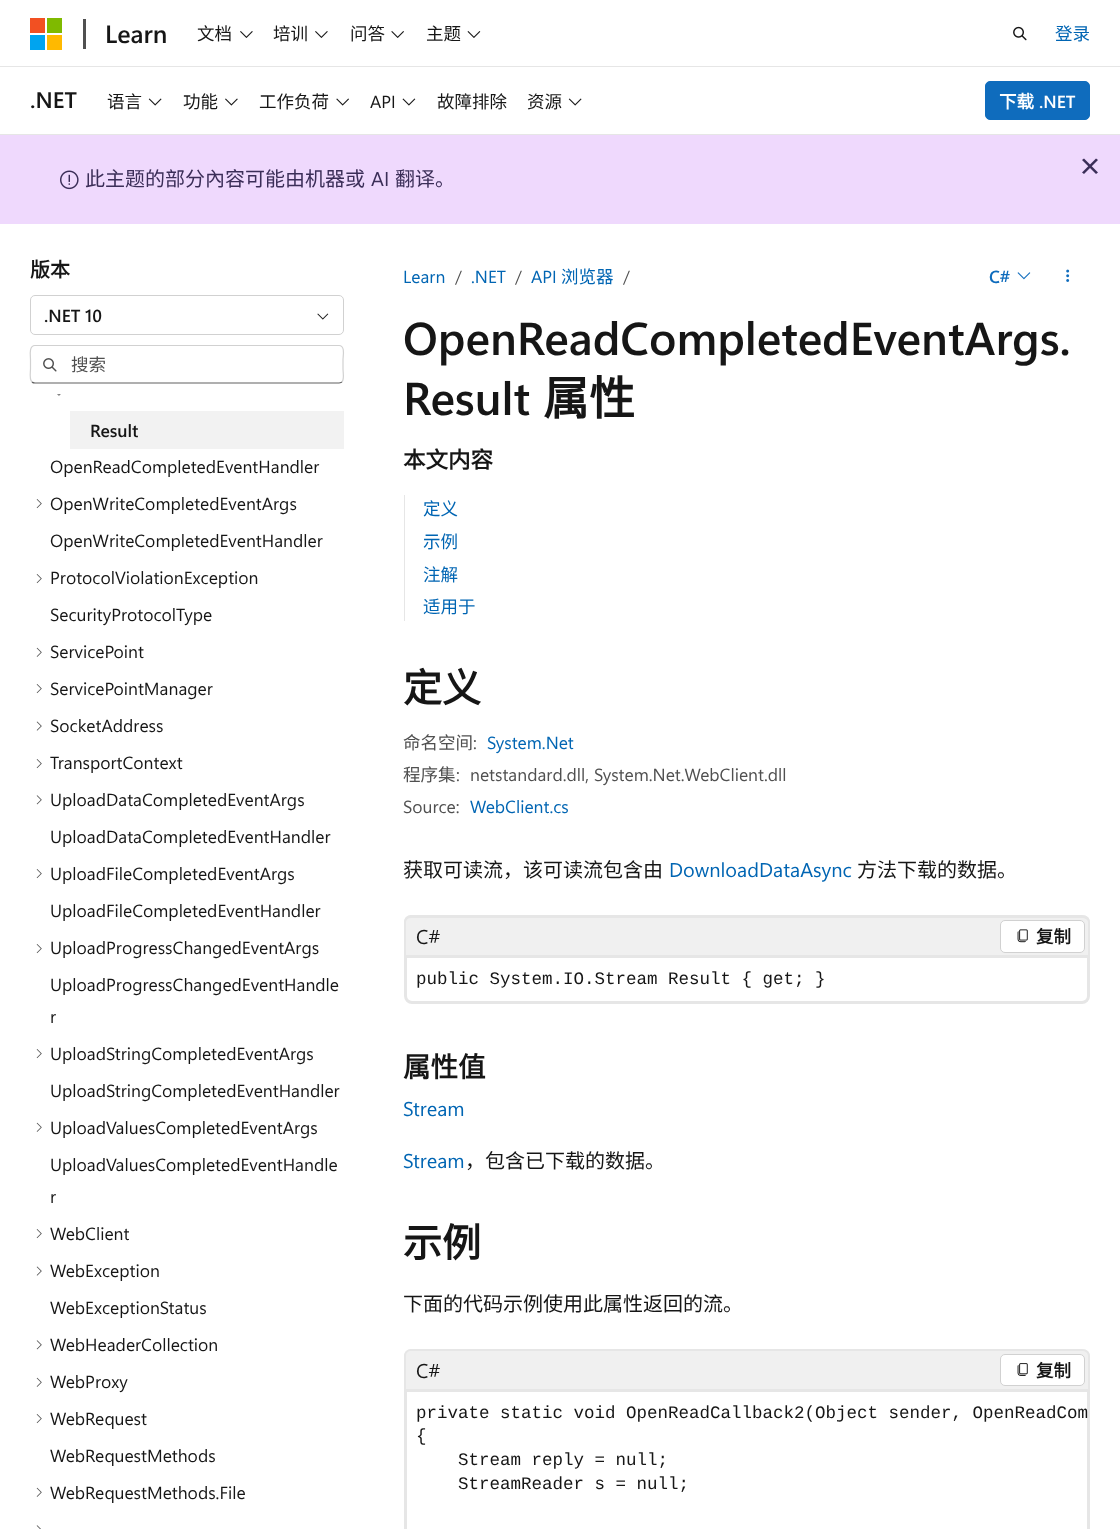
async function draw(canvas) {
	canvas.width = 1120;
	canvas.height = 1529;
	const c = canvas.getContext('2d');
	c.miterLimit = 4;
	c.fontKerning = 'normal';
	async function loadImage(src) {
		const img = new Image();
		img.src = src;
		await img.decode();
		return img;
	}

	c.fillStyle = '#fff';
	c.fillRect(0, 0, 1120, 1529);
	for (const [x, y, w, h, color] of [
		[0, 66, 1120, 1, '#e6e6e6'],
		[30, 18, 15, 15, '#f25022'],
		[47, 18, 15, 15, '#7fba00'],
		[30, 35, 15, 15, '#00a4ef'],
		[47, 35, 15, 15, '#ffb900'],
		[83, 19, 3, 30, '#505050'],
	]) {
		c.fillStyle = color;
		c.fillRect(x, y, w, h);
	}
	c.font = '600 25px Segoe UI';
	c.fillStyle = '#161616';
	c.fillText('Learn', 105, 43);
	c.font = '17.5px Noto Sans CJK SC';
	c.fillText('文档', 197, 40);
	c.drawImage(await loadImage('img1.png'), 240, 31, 13, 7);
	c.fillText('培训', 273, 40);
	c.drawImage(await loadImage('img1.png'), 315, 31, 13, 7);
	c.fillText('问答', 350, 40);
	c.drawImage(await loadImage('img2.png'), 391, 31, 13, 7);
	c.fillText('主题', 426, 40);
	c.drawImage(await loadImage('img3.png'), 467, 31, 14, 7);
	c.drawImage(await loadImage('img4.png'), 1013, 26, 14, 15);
	c.fillStyle = '#0065b3';
	c.fillText('登录', 1055, 40);
	c.fillStyle = '#e6e6e6';
	c.fillRect(0, 134, 1120, 1);
	c.font = '600 22.5px Segoe UI';
	c.fillStyle = '#161616';
	c.fillText('.NET', 30, 108);
	c.font = '17.5px Noto Sans CJK SC';
	c.fillText('语言', 107, 108);
	c.drawImage(await loadImage('img5.png'), 148, 98, 14, 8);
	c.fillText('功能', 183, 108);
	c.drawImage(await loadImage('img6.png'), 225, 98, 13, 8);
	c.fillText('工作负荷', 259, 108);
	c.drawImage(await loadImage('img7.png'), 336, 98, 13, 8);
	c.font = '17.5px Segoe UI';
	c.fillText('API', 370, 108);
	c.drawImage(await loadImage('img8.png'), 402, 98, 14, 8);
	c.font = '17.5px Noto Sans CJK SC';
	c.fillText('故障排除', 437, 108);
	c.fillText('资源', 527, 108);
	c.drawImage(await loadImage('img5.png'), 568, 98, 14, 8);
	c.fillStyle = '#0f6cbd';
	c.beginPath();
	c.roundRect(985.5, 81.5, 104, 38, 4.5);
	c.fill();
	c.strokeStyle = '#0f6cbd';
	c.stroke();
	c.font = 'bold 17.5px Noto Sans CJK SC';
	c.fillStyle = '#fff';
	c.fillText('下载', 999, 108);
	c.font = '600 17.5px Segoe UI';
	c.fillText('.NET', 1039, 108);
	c.fillStyle = '#efd9fd';
	c.fillRect(0, 135, 1120, 89);
	c.fillStyle = '#3b2e58';
	c.beginPath();
	c.moveTo(1084, 158.5);
	c.lineTo(1098, 172.5);
	c.lineTo(1096, 174);
	c.lineTo(1082, 160);
	c.closePath();
	c.fill();
	c.beginPath();
	c.moveTo(1096, 158.5);
	c.lineTo(1098, 160);
	c.lineTo(1084, 174);
	c.lineTo(1082, 172.5);
	c.closePath();
	c.fill();
	c.drawImage(await loadImage('img9.png'), 60, 170, 19, 20);
	c.font = '20px Noto Sans CJK SC';
	c.fillText('此主题的部分內容可能由机器或', 85, 186);
	c.font = '20px Segoe UI';
	c.fillText('AI', 371, 186);
	c.font = '20px Noto Sans CJK SC';
	c.fillText('翻译。', 395, 186);
	c.font = 'bold 20px Noto Sans CJK SC';
	c.fillStyle = '#161616';
	c.fillText('版本', 30, 277);
	c.beginPath();
	c.roundRect(30.5, 295.5, 313, 39, 4.5);
	c.strokeStyle = '#d1d1d1';
	c.stroke();
	c.font = '600 17.5px Segoe UI';
	c.fillText('.NET 10', 44, 322);
	c.drawImage(await loadImage('img10.png'), 317, 313, 12, 7);
	c.beginPath();
	c.moveTo(342, 382);
	c.bezierCurveTo(341, 382.5, 340, 383, 339, 383);
	c.lineTo(35, 383);
	c.bezierCurveTo(34, 383, 32.5, 382.5, 32, 382);
	c.strokeStyle = '#616161';
	c.lineWidth = 1.2;
	c.stroke();
	c.beginPath();
	c.moveTo(32, 382);
	c.bezierCurveTo(29, 379, 30.5, 372.5, 30.5, 369);
	c.lineTo(30.5, 359.5);
	c.bezierCurveTo(30.5, 356.5, 28.5, 345.5, 35, 345.5);
	c.lineTo(339, 345.5);
	c.bezierCurveTo(345.5, 345.5, 343, 356.5, 343, 359.5);
	c.lineTo(343, 369);
	c.bezierCurveTo(343, 372.5, 344.5, 379, 342, 382);
	c.strokeStyle = '#d1d1d1';
	c.stroke();
	c.drawImage(await loadImage('img11.png'), 43, 358, 14, 14);
	c.font = '17.5px Noto Sans CJK SC';
	c.fillStyle = '#505050';
	c.fillText('搜索', 71, 371);
	c.drawImage(await loadImage('img12.png'), 57, 394, 4, 2);
	c.fillStyle = '#f2f2f2';
	c.fillRect(70, 411, 274, 38);
	c.font = '600 17.5px Segoe UI';
	c.fillStyle = '#161616';
	c.fillText('Result', 90, 437);
	c.font = '17.5px Segoe UI';
	c.fillText('OpenReadCompletedEventHandler', 50, 473);
	c.drawImage(await loadImage('img13.png'), 36, 499, 6, 10);
	c.fillText('OpenWriteCompletedEventArgs', 50, 510);
	c.fillText('OpenWriteCompletedEventHandler', 50, 547);
	c.drawImage(await loadImage('img13.png'), 36, 574, 6, 10);
	c.fillText('ProtocolViolationException', 50, 584);
	c.fillText('SecurityProtocolType', 50, 621);
	c.drawImage(await loadImage('img14.png'), 36, 647, 6, 10);
	c.fillText('ServicePoint', 50, 658);
	c.drawImage(await loadImage('img13.png'), 36, 684, 6, 10);
	c.fillText('ServicePointManager', 50, 695);
	c.drawImage(await loadImage('img15.png'), 36, 721, 6, 10);
	c.fillText('SocketAddress', 50, 732);
	c.drawImage(await loadImage('img13.png'), 36, 759, 6, 10);
	c.fillText('TransportContext', 50, 769);
	c.drawImage(await loadImage('img16.png'), 36, 795, 6, 10);
	c.fillText('UploadDataCompletedEventArgs', 50, 806);
	c.fillText('UploadDataCompletedEventHandler', 50, 843);
	c.drawImage(await loadImage('img13.png'), 36, 869, 6, 10);
	c.fillText('UploadFileCompletedEventArgs', 50, 880);
	c.fillText('UploadFileCompletedEventHandler', 50, 917);
	c.drawImage(await loadImage('img13.png'), 36, 944, 6, 10);
	for (const [text, x, y] of [
		['UploadProgressChangedEventArgs', 50, 954],
		['UploadProgressChangedEventHandle', 50, 991],
		['r', 50, 1023],
	]) {
		c.fillText(text, x, y);
	}
	c.drawImage(await loadImage('img13.png'), 36, 1049, 6, 10);
	c.fillText('UploadStringCompletedEventArgs', 50, 1060);
	c.fillText('UploadStringCompletedEventHandler', 50, 1097);
	c.drawImage(await loadImage('img14.png'), 36, 1122, 6, 10);
	for (const [text, x, y] of [
		['UploadValuesCompletedEventArgs', 50, 1134],
		['UploadValuesCompletedEventHandle', 50, 1171],
		['r', 50, 1203],
	]) {
		c.fillText(text, x, y);
	}
	c.drawImage(await loadImage('img13.png'), 36, 1229, 6, 10);
	c.fillText('WebClient', 50, 1240);
	c.drawImage(await loadImage('img15.png'), 36, 1266, 6, 10);
	c.fillText('WebException', 50, 1277);
	c.fillText('WebExceptionStatus', 50, 1314);
	c.drawImage(await loadImage('img16.png'), 36, 1340, 6, 10);
	c.fillText('WebHeaderCollection', 50, 1351);
	c.drawImage(await loadImage('img14.png'), 36, 1377, 6, 10);
	c.fillText('WebProxy', 50, 1388);
	c.drawImage(await loadImage('img13.png'), 36, 1414, 6, 10);
	c.fillText('WebRequest', 50, 1425);
	c.fillText('WebRequestMethods', 50, 1462);
	c.drawImage(await loadImage('img14.png'), 36, 1487, 6, 10);
	c.fillText('WebRequestMethods.File', 50, 1499);
	c.drawImage(await loadImage('img17.png'), 36, 1525, 5, 4);
	c.fillStyle = '#0065b3';
	c.fillText('Learn', 403, 283);
	c.fillStyle = '#505050';
	c.fillText('/', 455, 283);
	c.fillStyle = '#0065b3';
	c.fillText('.NET', 471, 283);
	c.fillStyle = '#505050';
	c.fillText('/', 515, 283);
	c.fillStyle = '#0065b3';
	c.fillText('API', 531, 283);
	c.font = '17.5px Noto Sans CJK SC';
	c.fillText('浏览器', 561, 283);
	c.font = '17.5px Segoe UI';
	c.fillStyle = '#505050';
	c.fillText('/', 623, 283);
	c.font = '600 17.5px Segoe UI';
	c.fillStyle = '#0f6cbd';
	c.fillText('C#', 989, 283);
	c.drawImage(await loadImage('img18.png'), 1017, 272, 14, 8);
	c.drawImage(await loadImage('img19.png'), 1066, 269, 4, 13);
	c.font = '600 46px Segoe UI';
	c.fillStyle = '#161616';
	c.fillText('OpenReadCompletedEventArgs.', 403, 355);
	c.fillText('Result', 403, 415);
	c.font = 'bold 46px Noto Sans CJK SC';
	c.fillText('属性', 543, 415);
	c.font = 'bold 22.5px Noto Sans CJK SC';
	c.fillText('本文内容', 403, 468);
	c.fillStyle = '#e6e6e6';
	c.fillRect(404, 495, 1, 126);
	c.font = '17.5px Noto Sans CJK SC';
	c.fillStyle = '#0065b3';
	for (const [text, x, y] of [
		['定义', 423, 515],
		['示例', 423, 548],
		['注解', 423, 581],
		['适用于', 423, 613],
	]) {
		c.fillText(text, x, y);
	}
	c.font = 'bold 39px Noto Sans CJK SC';
	c.fillStyle = '#161616';
	c.fillText('定义', 403, 702);
	c.font = '17.5px Noto Sans CJK SC';
	c.fillStyle = '#505050';
	c.fillText('命名空间', 403, 749);
	c.font = '17.5px Segoe UI';
	c.fillText(':', 473, 749);
	c.fillStyle = '#0065b3';
	c.fillText('System.Net', 487, 749);
	c.font = '17.5px Noto Sans CJK SC';
	c.fillStyle = '#505050';
	c.fillText('程序集', 403, 781);
	c.font = '17.5px Segoe UI';
	for (const [text, x, y] of [
		[':', 456, 781],
		['netstandard.dll, System.Net.WebClient.dll', 470, 781],
		['Source:', 403, 813],
	]) {
		c.fillText(text, x, y);
	}
	c.fillStyle = '#0065b3';
	c.fillText('WebClient.cs', 470, 813);
	c.font = '20px Noto Sans CJK SC';
	c.fillStyle = '#161616';
	c.fillText('获取可读流，该可读流包含由', 403, 877);
	c.font = '20px Segoe UI';
	c.fillStyle = '#0065b3';
	c.fillText('DownloadDataAsync', 669, 877);
	c.font = '20px Noto Sans CJK SC';
	c.fillStyle = '#161616';
	c.fillText('方法下载的数据。', 857, 877);
	c.fillStyle = '#f0f0f0';
	c.beginPath();
	c.roundRect(404, 915, 686, 40, [8, 8, 0, 0]);
	c.fill();
	c.fillStyle = '#e6e6e6';
	c.beginPath();
	c.moveTo(411, 915);
	c.lineTo(1082, 915);
	c.bezierCurveTo(1087, 915, 1090, 918, 1090, 922);
	c.lineTo(1090, 955);
	c.lineTo(404, 955);
	c.lineTo(404, 922);
	c.bezierCurveTo(404, 918, 407, 915, 411, 915);
	c.closePath();
	c.moveTo(411, 918);
	c.lineTo(1082, 918);
	c.bezierCurveTo(1085, 918, 1088, 920, 1088, 922);
	c.lineTo(1088, 955);
	c.lineTo(406, 955);
	c.lineTo(406, 922);
	c.bezierCurveTo(406, 920, 408, 918, 411, 918);
	c.closePath();
	c.fill('evenodd');
	c.font = '20px Segoe UI';
	c.fillStyle = '#161616';
	c.fillText('C#', 416, 944);
	c.fillStyle = '#fff';
	c.beginPath();
	c.roundRect(1000.5, 920.5, 84, 32, 4.5);
	c.fill();
	c.lineWidth = 1;
	c.stroke();
	c.drawImage(await loadImage('img20.png'), 1017, 929, 11, 14);
	c.font = 'bold 17.5px Noto Sans CJK SC';
	c.fillStyle = '#161616';
	c.fillText('复制', 1036, 943);
	c.beginPath();
	c.roundRect(405.5, 956.5, 683, 46, [0, 0, 6.5, 6.5]);
	c.strokeStyle = '#e6e6e6';
	c.lineWidth = 3;
	c.stroke();
	c.font = '17.5px Liberation Mono';
	c.fillText('public System.IO.Stream Result { get; }', 416, 984);
	c.font = 'bold 27.5px Noto Sans CJK SC';
	c.fillText('属性值', 403, 1077);
	c.font = '20px Segoe UI';
	c.fillStyle = '#0065b3';
	c.fillText('Stream', 403, 1116);
	c.fillText('Stream', 403, 1168);
	c.font = '20px Noto Sans CJK SC';
	c.fillStyle = '#161616';
	c.fillText('，包含已下载的数据。', 465, 1168);
	c.font = 'bold 39px Noto Sans CJK SC';
	c.fillText('示例', 403, 1257);
	c.font = '20px Noto Sans CJK SC';
	c.fillText('下面的代码示例使用此属性返回的流。', 403, 1311);
	c.fillStyle = '#f0f0f0';
	c.beginPath();
	c.roundRect(404, 1349, 686, 40, [8, 8, 0, 0]);
	c.fill();
	c.fillStyle = '#e6e6e6';
	c.beginPath();
	c.moveTo(411, 1349);
	c.lineTo(1082, 1349);
	c.bezierCurveTo(1087, 1349, 1090, 1352, 1090, 1356);
	c.lineTo(1090, 1389);
	c.lineTo(404, 1389);
	c.lineTo(404, 1356);
	c.bezierCurveTo(404, 1352, 407, 1349, 411, 1349);
	c.closePath();
	c.moveTo(411, 1351);
	c.lineTo(1082, 1351);
	c.bezierCurveTo(1085, 1351, 1088, 1353, 1088, 1356);
	c.lineTo(1088, 1389);
	c.lineTo(406, 1389);
	c.lineTo(406, 1356);
	c.bezierCurveTo(406, 1353, 408, 1351, 411, 1351);
	c.closePath();
	c.fill('evenodd');
	c.font = '20px Segoe UI';
	c.fillStyle = '#161616';
	c.fillText('C#', 416, 1378);
	c.fillStyle = '#fff';
	c.beginPath();
	c.roundRect(1000.5, 1354.5, 84, 31, 4.5);
	c.fill();
	c.strokeStyle = '#d1d1d1';
	c.lineWidth = 1;
	c.stroke();
	c.drawImage(await loadImage('img21.png'), 1017, 1363, 11, 13);
	c.font = 'bold 17.5px Noto Sans CJK SC';
	c.fillStyle = '#161616';
	c.fillText('复制', 1036, 1377);
	c.strokeStyle = '#e6e6e6';
	c.lineWidth = 3;
	c.strokeRect(405.5, 1390.5, 683, 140);
	c.font = '17.5px Liberation Mono';
	for (const [text, x, y] of [
		['private static void OpenReadCallback2(Object sender, OpenReadCom', 416, 1418],
		['{', 416, 1441],
		['Stream reply = null;', 458, 1465],
		['StreamReader s = null;', 458, 1489],
	]) {
		c.fillText(text, x, y);
	}
}

draw(document.querySelector('canvas'));
